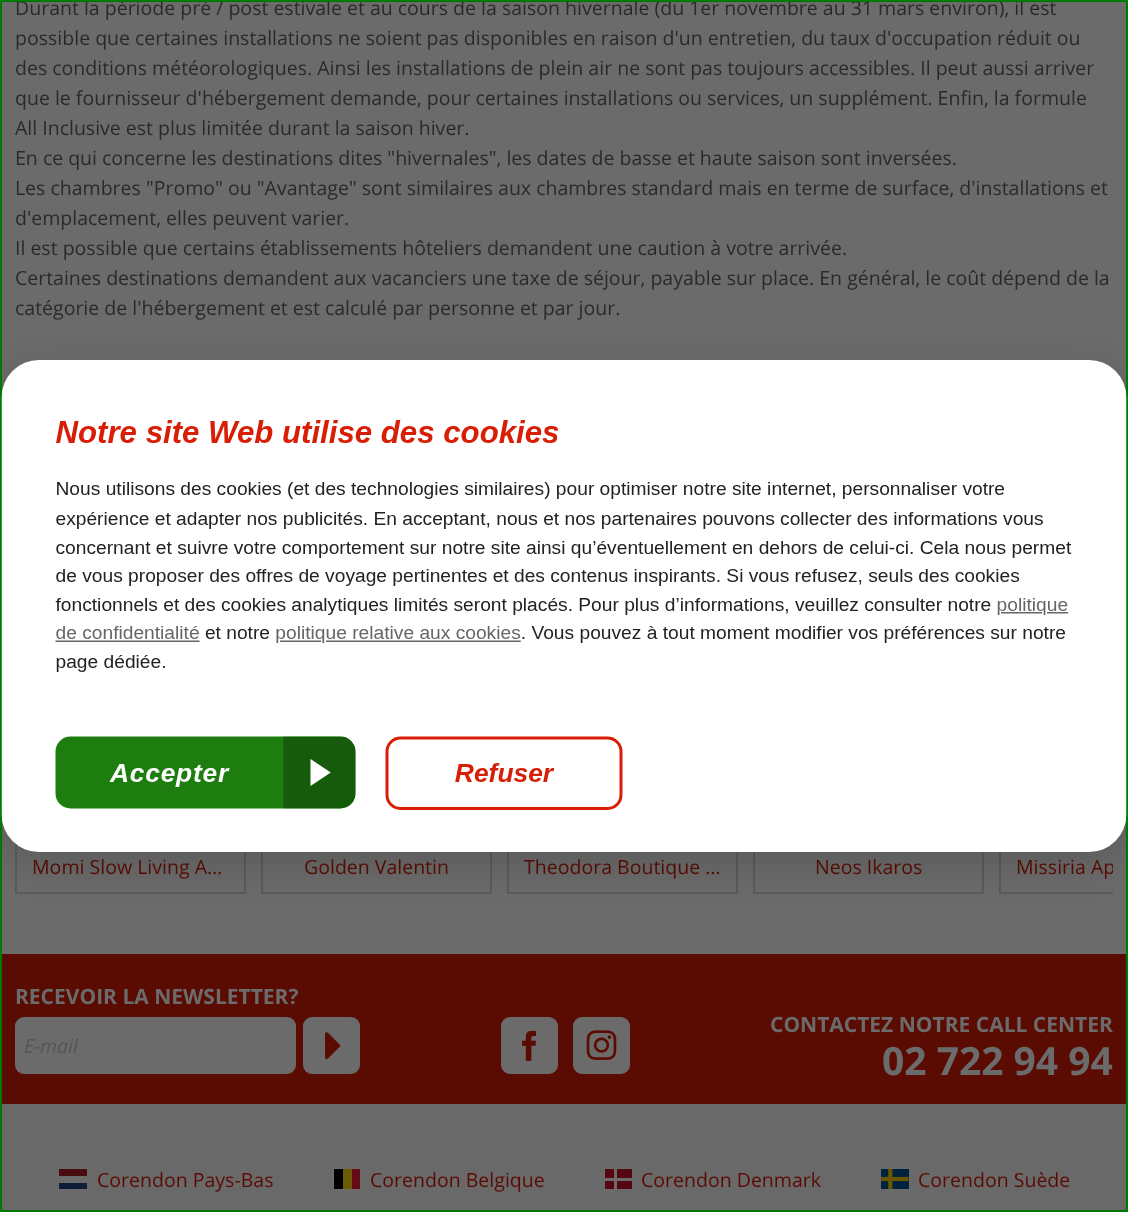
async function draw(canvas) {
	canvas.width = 1128;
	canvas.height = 1212;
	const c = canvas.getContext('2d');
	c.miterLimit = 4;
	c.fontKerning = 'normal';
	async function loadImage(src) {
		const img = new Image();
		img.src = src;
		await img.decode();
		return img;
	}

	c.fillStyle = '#b3b3b3';
	c.fillRect(0, 0, 1128, 1212);
	c.font = '19.5px Open Sans';
	c.fillStyle = '#474747';
	c.fillText('Durant la période pré / post estivale et au cours de la saison hivernale (du 1er novembre au 31 mars environ), il est', 15, 15);
	c.strokeStyle = '#989898';
	c.lineWidth = 2;
	c.strokeRect(16, 688, 229, 205);
	c.strokeRect(262, 688, 229, 205);
	c.strokeRect(508, 688, 229, 205);
	c.strokeRect(754, 688, 229, 205);
	c.save();
	c.beginPath();
	c.rect(15, 687, 1098, 207);
	c.clip();
	c.strokeRect(1000, 688, 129, 205);
	c.restore();
	c.fillStyle = '#afafaf';
	c.fillRect(2, 1104, 1124, 106);
	c.fillStyle = '#971504';
	c.fillRect(2, 954, 1124, 150);
	c.fillStyle = '#b3b3b3';
	c.beginPath();
	c.roundRect(15, 1017, 281, 57, 9);
	c.fill();
	c.beginPath();
	c.roundRect(303, 1017, 57, 57, 9);
	c.fill();
	c.drawImage(await loadImage('img2.png'), 325, 1032, 16, 28);
	c.beginPath();
	c.roundRect(501, 1017, 57, 57, 9);
	c.fill();
	c.drawImage(await loadImage('img3.png'), 522, 1030, 14, 31);
	c.beginPath();
	c.roundRect(573, 1017, 57, 57, 9);
	c.fill();
	c.drawImage(await loadImage('img4.png'), 586, 1030, 31, 30);
	for (const [x, y, w, h, color] of [
		[59, 1183, 28, 6, '#173161'],
		[59, 1176, 28, 7, '#b3b3b3'],
		[59, 1169, 28, 7, '#7a141c'],
	]) {
		c.fillStyle = color;
		c.fillRect(x, y, w, h);
	}
	c.strokeStyle = '#b3b3b3';
	c.strokeRect(58, 1168, 30, 22);
	for (const [x, y, w, h, color] of [
		[334, 1169, 9, 20, '#000'],
		[343, 1169, 9, 20, '#b39808'],
		[352, 1169, 8, 21, '#a12'],
	]) {
		c.fillStyle = color;
		c.fillRect(x, y, w, h);
	}
	c.strokeRect(333, 1168, 29, 22);
	for (const [x, y, w, h, color] of [
		[605, 1169, 27, 20, '#8c0b20'],
		[614, 1169, 3, 21, '#b3b3b3'],
		[605, 1178, 27, 3, '#b3b3b3'],
	]) {
		c.fillStyle = color;
		c.fillRect(x, y, w, h);
	}
	c.strokeRect(604, 1168, 30, 22);
	c.drawImage(await loadImage('img5.png'), 881, 1169, 28, 20);
	c.strokeRect(880, 1168, 30, 22);
	c.strokeStyle = '#008000';
	c.strokeRect(1, 1, 1126, 1210);
	c.fillStyle = '#474747';
	for (const [text, x, y] of [
		['possible que certaines installations ne soient pas disponibles en raison d\'un entretien, du taux d\'occupation réduit ou', 15, 45],
		['des conditions météorologiques. Ainsi les installations de plein air ne sont pas toujours accessibles. Il peut aussi arriver', 15, 75],
		['que le fournisseur d\'hébergement demande, pour certaines installations ou services, un supplément. Enfin, la formule', 15, 105],
		['All Inclusive est plus limitée durant la saison hiver.', 15, 135],
		['En ce qui concerne les destinations dites "hivernales", les dates de basse et haute saison sont inversées.', 15, 165],
		['Les chambres "Promo" ou "Avantage" sont similaires aux chambres standard mais en terme de surface, d\'installations et', 15, 195],
		['d\'emplacement, elles peuvent varier.', 15, 225],
		['Il est possible que certains établissements hôteliers demandent une caution à votre arrivée.', 15, 255],
		['Certaines destinations demandent aux vacanciers une taxe de séjour, payable sur place. En général, le coût dépend de la', 15, 285],
		['catégorie de l\'hébergement et est calculé par personne et par jour.', 15, 315],
	]) {
		c.fillText(text, x, y);
	}
	c.fillStyle = '#971504';
	for (const [text, x, y] of [
		['Momi Slow Living A…', 32, 874],
		['Golden Valentin', 304, 874],
		['Theodora Boutique …', 524, 874],
		['Neos Ikaros', 815, 874],
	]) {
		c.fillText(text, x, y);
	}
	c.save();
	c.beginPath();
	c.rect(1016, 836, 97, 45);
	c.clip();
	c.fillText('Missiria Ap', 1016, 874);
	c.restore();
	c.font = 'bold 21px Open Sans';
	c.fillStyle = '#b3b3b3';
	c.fillText('RECEVOIR LA NEWSLETTER?', 15, 1004);
	c.font = 'italic 19.5px Open Sans';
	c.fillStyle = '#8f8f8f';
	c.fillText('E-mail', 24, 1053);
	c.font = 'bold 21px Open Sans';
	c.fillStyle = '#b3b3b3';
	c.fillText('CONTACTEZ NOTRE CALL CENTER', 770, 1032);
	c.font = 'bold 39px Open Sans';
	c.fillText('02 722 94 94', 882, 1075);
	c.font = '19.5px Open Sans';
	c.fillStyle = '#971504';
	for (const [text, x, y] of [
		['Corendon Pays-Bas', 97, 1187],
		['Corendon Belgique', 370, 1187],
		['Corendon Denmark', 641, 1187],
		['Corendon Suède', 918, 1187],
	]) {
		c.fillText(text, x, y);
	}
	c.drawImage(await loadImage('img1.png'), 1, 1, 1126, 1210);
}

draw(document.querySelector('canvas'));
